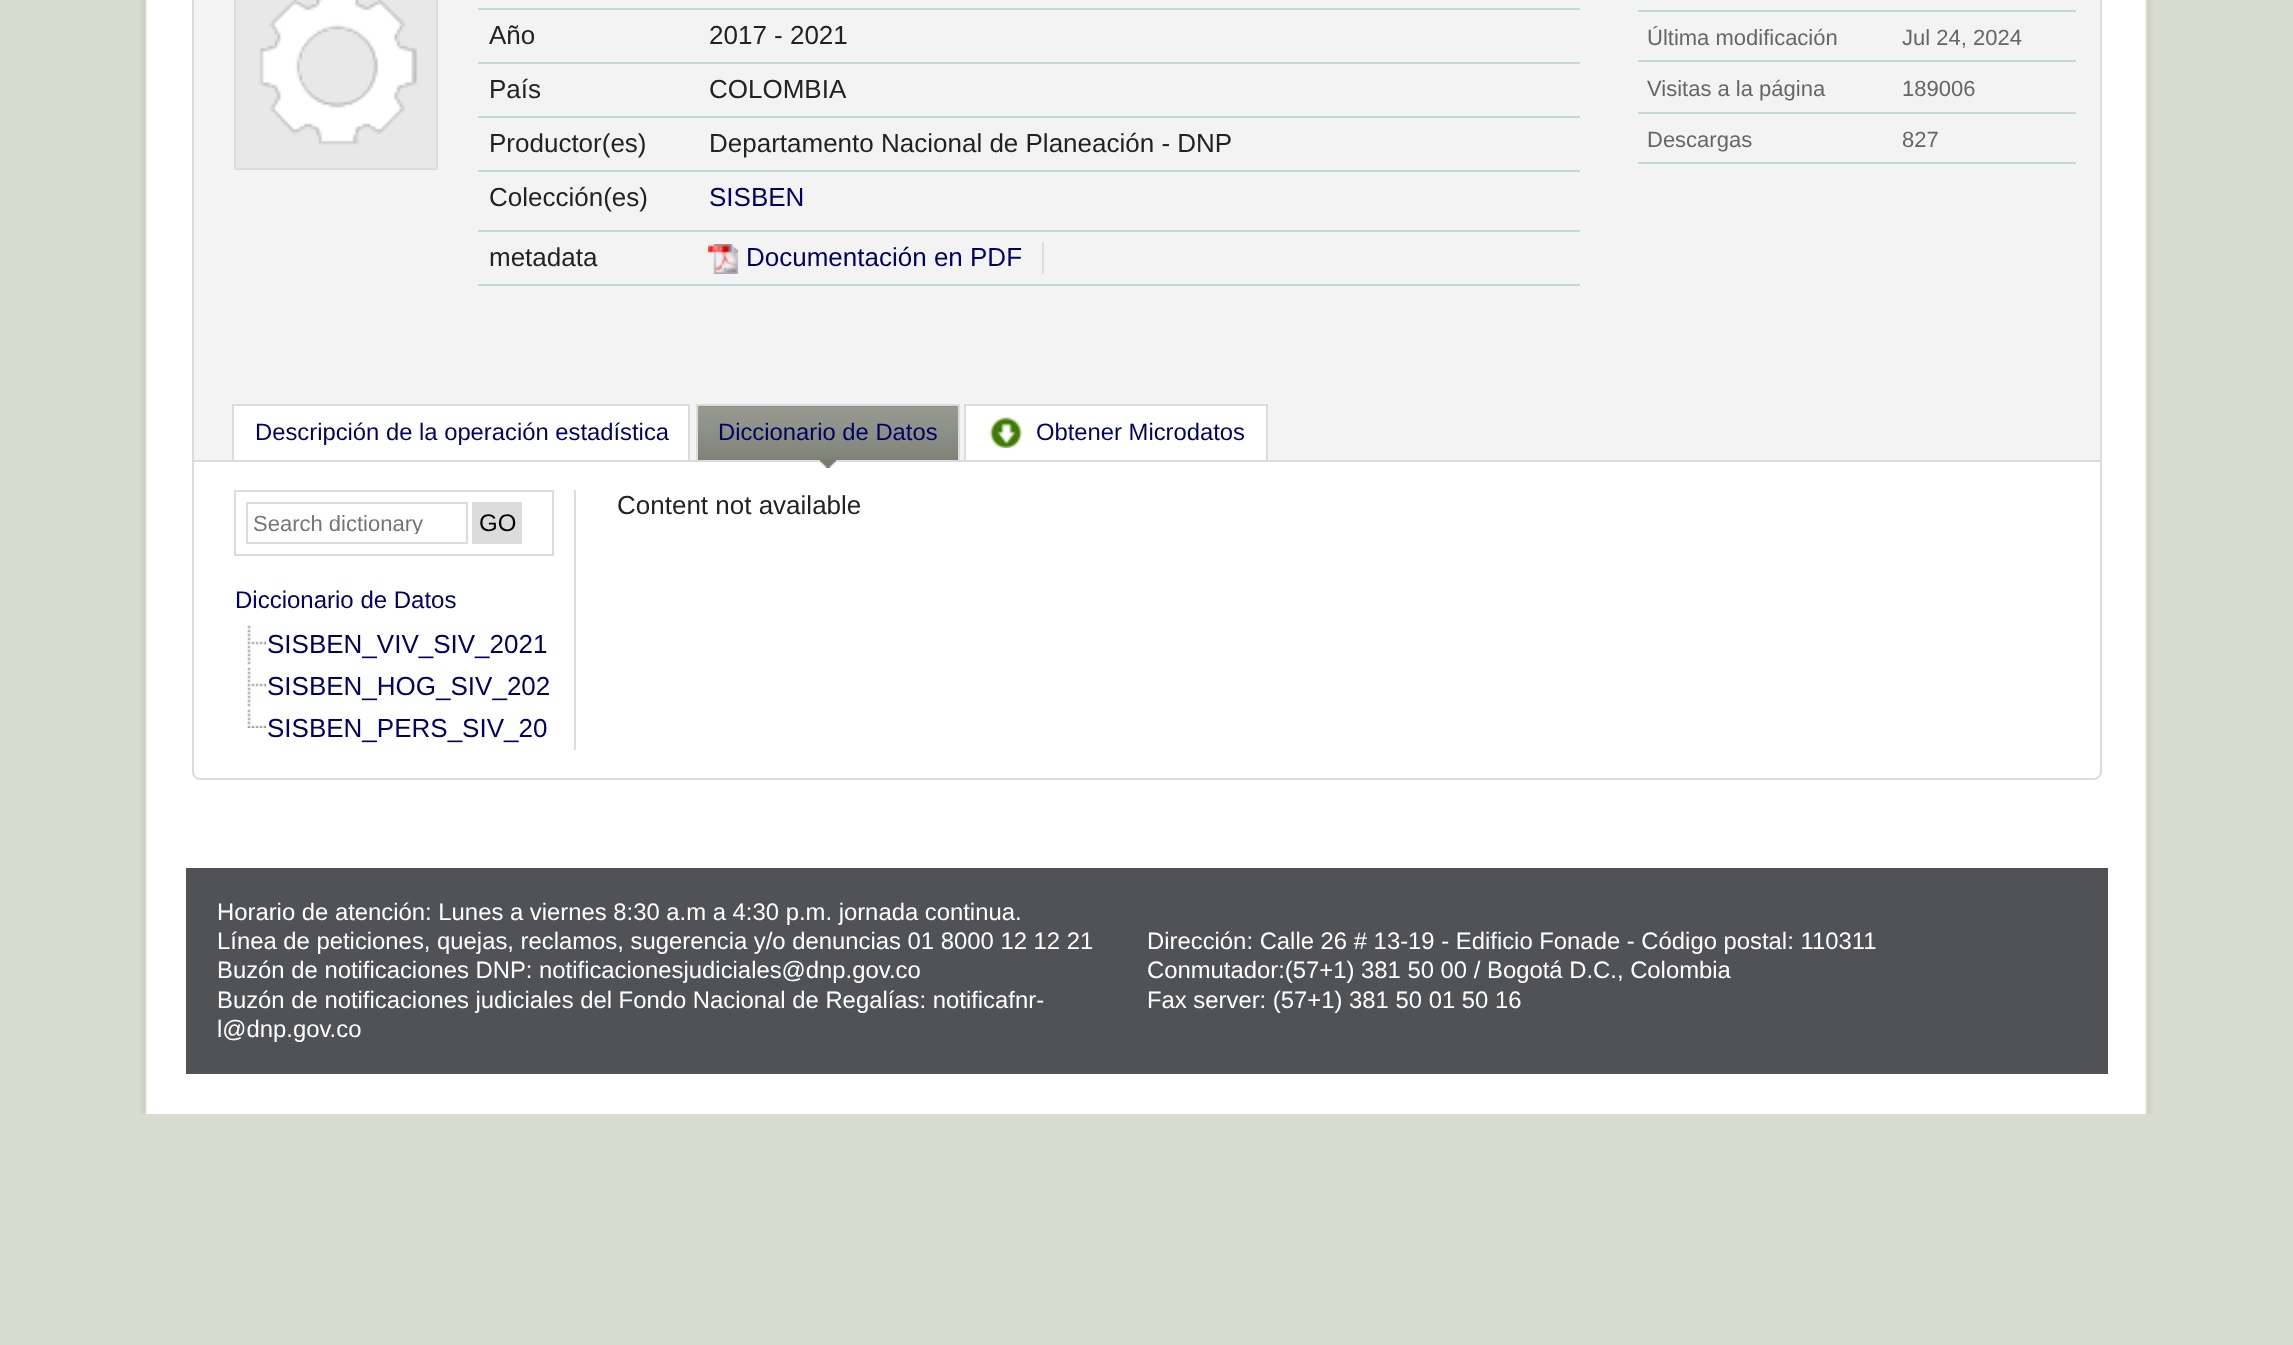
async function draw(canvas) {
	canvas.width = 2293;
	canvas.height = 1345;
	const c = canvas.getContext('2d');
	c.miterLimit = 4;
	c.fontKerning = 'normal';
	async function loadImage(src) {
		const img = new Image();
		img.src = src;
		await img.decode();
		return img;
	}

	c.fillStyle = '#d8dcd0';
	c.fillRect(0, 0, 2293, 1345);
	c.drawImage(await loadImage('img1.png'), 140, 0, 2014, 1114);
	c.fillStyle = '#f3f3f3';
	c.fillRect(194, 0, 1906, 460);
	c.strokeStyle = '#dcdcdc';
	c.lineWidth = 2;
	c.strokeRect(193, -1, 1908, 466);
	c.strokeRect(235, -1, 202, 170);
	c.drawImage(await loadImage('img2.png'), 236, 0, 200, 168);
	c.fillStyle = '#c1dad7';
	c.fillRect(478, 8, 1102, 2);
	c.font = '26px Liberation Sans';
	c.fillStyle = '#222';
	c.fillText('Año', 489, 44);
	c.fillStyle = '#c1dad7';
	c.fillRect(478, 62, 1102, 2);
	c.fillStyle = '#222';
	c.fillText('2017 - 2021', 709, 44);
	c.fillText('País', 489, 98);
	c.fillStyle = '#c1dad7';
	c.fillRect(478, 116, 1102, 2);
	c.fillStyle = '#222';
	c.fillText('COLOMBIA', 709, 98);
	c.fillText('Productor(es)', 489, 152);
	c.fillStyle = '#c1dad7';
	c.fillRect(478, 170, 1102, 2);
	c.fillStyle = '#222';
	c.fillText('Departamento Nacional de Planeación - DNP', 709, 152);
	c.fillText('Colección(es)', 489, 206);
	c.fillStyle = '#c1dad7';
	c.fillRect(478, 230, 1102, 2);
	c.fillStyle = '#006';
	c.fillText('SISBEN', 709, 206);
	c.fillStyle = '#222';
	c.fillText('metadata', 489, 266);
	c.fillStyle = '#c1dad7';
	c.fillRect(478, 284, 1102, 2);
	c.fillStyle = '#dcdcdc';
	c.fillRect(1042, 242, 2, 32);
	c.drawImage(await loadImage('img3.png'), 708, 244, 30, 30);
	c.fillStyle = '#006';
	c.fillText('Documentación en PDF', 746, 266);
	c.fillStyle = '#c1dad7';
	c.fillRect(1638, 10, 438, 2);
	c.font = '22px Liberation Sans';
	c.fillStyle = '#666';
	c.fillText('Última modificación', 1647, 45);
	c.fillStyle = '#c1dad7';
	c.fillRect(1638, 60, 438, 2);
	c.fillStyle = '#666';
	c.fillText('Jul 24, 2024', 1902, 45);
	c.fillText('Visitas a la página', 1647, 96);
	c.fillStyle = '#c1dad7';
	c.fillRect(1638, 112, 438, 2);
	c.fillStyle = '#666';
	c.fillText('189006', 1902, 96);
	c.fillText('Descargas', 1647, 147);
	c.fillStyle = '#c1dad7';
	c.fillRect(1638, 162, 438, 2);
	c.fillStyle = '#666';
	c.fillText('827', 1902, 147);
	for (const [x, y, w, h, color] of [
		[192, 460, 1910, 2, '#dcdcdc'],
		[234, 406, 454, 54, '#fff'],
		[232, 404, 458, 2, '#dcdcdc'],
		[688, 404, 2, 56, '#dcdcdc'],
		[232, 404, 2, 56, '#dcdcdc'],
	]) {
		c.fillStyle = color;
		c.fillRect(x, y, w, h);
	}
	c.font = '23.8px Liberation Sans';
	c.fillStyle = '#006';
	c.fillText('Descripción de la operación estadística', 255, 440);
	c.fillStyle = '#fff';
	c.beginPath();
	c.roundRect(192, 462, 1910, 318, [0, 0, 8, 8]);
	c.fill();
	c.fillStyle = '#dcdcdc';
	c.beginPath();
	c.moveTo(192, 462);
	c.lineTo(2102, 462);
	c.lineTo(2102, 772);
	c.bezierCurveTo(2102, 776, 2098, 780, 2094, 780);
	c.lineTo(200, 780);
	c.bezierCurveTo(196, 780, 192, 776, 192, 772);
	c.closePath();
	c.moveTo(194, 462);
	c.lineTo(2100, 462);
	c.lineTo(2100, 772);
	c.bezierCurveTo(2100, 775, 2097, 778, 2094, 778);
	c.lineTo(200, 778);
	c.bezierCurveTo(197, 778, 194, 775, 194, 772);
	c.closePath();
	c.fill('evenodd');
	c.drawImage(await loadImage('img4.png'), 820, 460, 16, 8);
	c.drawImage(await loadImage('img5.png'), 698, 406, 260, 54);
	for (const [x, y, w, h, color] of [
		[696, 404, 264, 2, '#dcdcdc'],
		[958, 404, 2, 56, '#dcdcdc'],
		[696, 404, 2, 56, '#dcdcdc'],
	]) {
		c.fillStyle = color;
		c.fillRect(x, y, w, h);
	}
	c.fillStyle = '#006';
	c.fillText('Diccionario de Datos', 718, 440);
	for (const [x, y, w, h, color] of [
		[966, 406, 300, 54, '#fff'],
		[964, 404, 304, 2, '#dcdcdc'],
		[1266, 404, 2, 56, '#dcdcdc'],
		[964, 404, 2, 56, '#dcdcdc'],
	]) {
		c.fillStyle = color;
		c.fillRect(x, y, w, h);
	}
	c.drawImage(await loadImage('img6.png'), 989, 417, 34, 31);
	c.fillStyle = '#006';
	c.fillText('Obtener Microdatos', 1036, 440);
	c.font = '26px Liberation Sans';
	c.fillStyle = '#222';
	c.fillText('Content not available', 617, 514);
	c.fillStyle = '#dcdcdc';
	c.fillRect(574, 490, 2, 260);
	c.strokeRect(235, 491, 318, 64);
	c.strokeRect(247, 503, 220, 40);
	c.save();
	c.beginPath();
	c.rect(252, 510, 210, 24);
	c.clip();
	c.font = '22px Liberation Sans';
	c.fillStyle = '#757575';
	c.fillText('Search dictionary', 253, 531);
	c.restore();
	c.fillRect(472, 502, 50, 42);
	c.font = '24px Liberation Sans';
	c.fillStyle = '#000';
	c.fillText('GO', 479, 531);
	c.fillStyle = '#006';
	c.fillText('Diccionario de Datos', 235, 608);
	c.drawImage(await loadImage('img7.png'), 247, 625, 19, 40);
	c.font = '26px Liberation Sans';
	c.fillText('SISBEN_VIV_SIV_2021', 267, 653);
	c.drawImage(await loadImage('img7.png'), 247, 667, 19, 40);
	c.fillText('SISBEN_HOG_SIV_202', 267, 695);
	c.drawImage(await loadImage('img8.png'), 247, 709, 19, 19);
	c.fillText('SISBEN_PERS_SIV_20', 267, 737);
	c.fillStyle = '#515255';
	c.fillRect(186, 868, 1922, 206);
	c.font = '23.85px Liberation Sans';
	c.fillStyle = '#fff';
	for (const [text, x, y] of [
		['Horario de atención: Lunes a viernes 8:30 a.m a 4:30 p.m. jornada continua.', 217, 920],
		['Línea de peticiones, quejas, reclamos, sugerencia y/o denuncias 01 8000 12 12 21', 217, 949],
		['Buzón de notificaciones DNP: notificacionesjudiciales@dnp.gov.co', 217, 978],
		['Buzón de notificaciones judiciales del Fondo Nacional de Regalías: notificafnr-', 217, 1008],
		['l@dnp.gov.co', 217, 1037],
		['Dirección: Calle 26 # 13-19 - Edificio Fonade - Código postal: 110311', 1147, 949],
		['Conmutador:(57+1) 381 50 00 / Bogotá D.C., Colombia', 1147, 978],
		['Fax server: (57+1) 381 50 01 50 16', 1147, 1008],
	]) {
		c.fillText(text, x, y);
	}
}

draw(document.querySelector('canvas'));
